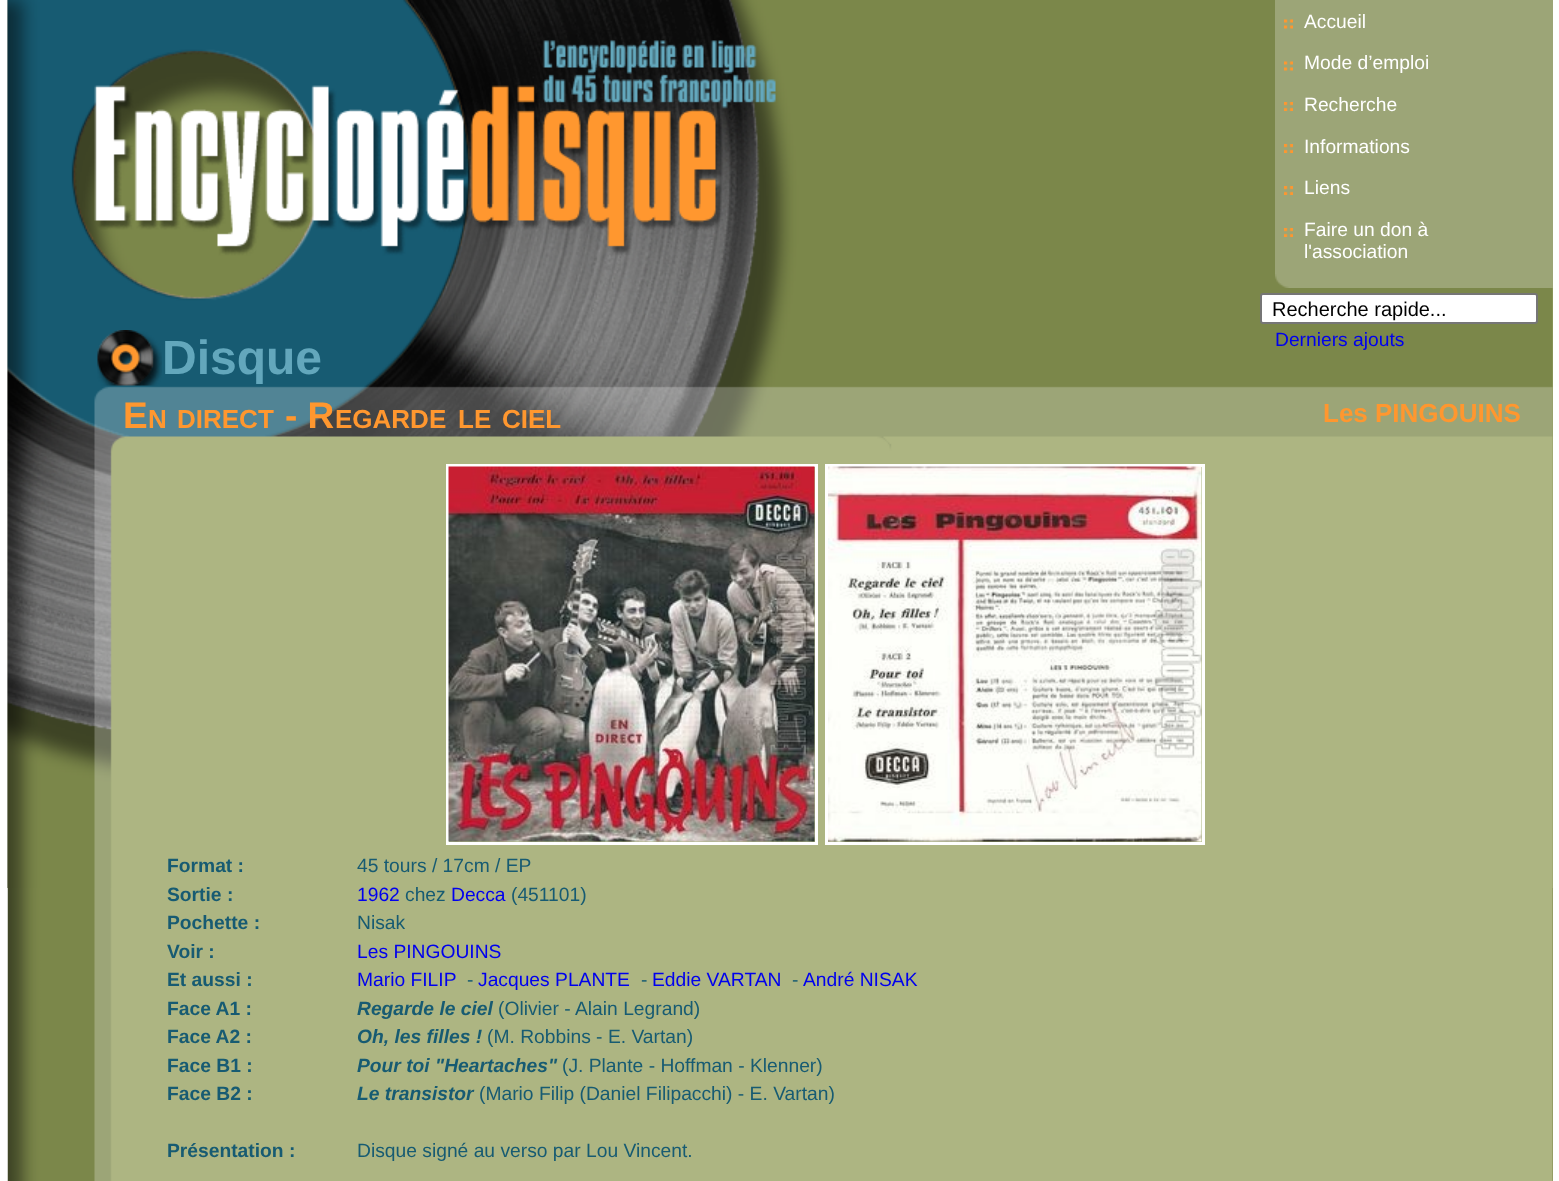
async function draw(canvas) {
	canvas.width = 1559;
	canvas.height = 1181;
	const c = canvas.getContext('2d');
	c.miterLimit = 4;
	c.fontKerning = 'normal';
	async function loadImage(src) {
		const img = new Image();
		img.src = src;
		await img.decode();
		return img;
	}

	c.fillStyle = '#fff';
	c.fillRect(0, 0, 1559, 1181);
	c.drawImage(await loadImage('img1.png'), 1552, 288, 1, 893);
	c.drawImage(await loadImage('img2.png'), 7, 0, 1546, 1181);
	c.drawImage(await loadImage('img3.png'), 7, 0, 1546, 888);
	c.fillStyle = '#9ca577';
	c.fillRect(1275, 0, 278, 288);
	c.drawImage(await loadImage('img4.png'), 1275, 274, 14, 14);
	c.drawImage(await loadImage('img5.png'), 1284, 19, 9, 10);
	c.font = '19.25px Liberation Sans';
	c.fillStyle = '#fff';
	c.fillText('Accueil', 1304, 28);
	c.drawImage(await loadImage('img5.png'), 1284, 61, 9, 10);
	c.fillText('Mode d’emploi', 1304, 69);
	c.drawImage(await loadImage('img6.png'), 1284, 102, 9, 9);
	c.fillText('Recherche', 1304, 111);
	c.drawImage(await loadImage('img6.png'), 1284, 144, 9, 9);
	c.fillText('Informations', 1304, 153);
	c.drawImage(await loadImage('img6.png'), 1284, 186, 9, 9);
	c.fillText('Liens', 1304, 194);
	c.drawImage(await loadImage('img6.png'), 1284, 228, 9, 9);
	c.fillText('Faire un don à', 1304, 236);
	c.fillText('l\'association', 1304, 258);
	c.beginPath();
	c.roundRect(1261, 294, 276, 29, 2);
	c.fill();
	c.strokeStyle = '#767676';
	c.lineWidth = 2;
	c.stroke();
	c.font = '20px Liberation Sans';
	c.fillStyle = '#000';
	c.fillText('Recherche rapide...', 1272, 316);
	c.font = '19.25px Liberation Sans';
	c.fillStyle = '#00e';
	c.fillText('Derniers ajouts', 1275, 346);
	c.drawImage(await loadImage('img7.png'), 97, 330, 65, 56);
	c.font = 'bold 48px Liberation Sans';
	c.fillStyle = '#63a7bc';
	c.fillText('Disque', 162, 374);
	c.font = 'bold 37px Liberation Sans';
	c.fillStyle = '#ff972f';
	c.fillText('E', 123, 428);
	c.font = 'bold 26px Liberation Sans';
	c.fillText('N', 148, 428);
	c.fillText('DIRECT', 177, 428);
	c.font = 'bold 37px Liberation Sans';
	c.fillText('- R', 285, 428);
	c.font = 'bold 26px Liberation Sans';
	for (const [text, x, y] of [
		['EGARDE', 335, 428],
		['LE', 458, 428],
		['CIEL', 502, 428],
		['Les PINGOUINS', 1323, 422],
	]) {
		c.fillText(text, x, y);
	}
	c.strokeStyle = '#fff';
	c.lineWidth = 3;
	c.strokeRect(447.5, 465.5, 369, 378);
	c.strokeRect(826.5, 465.5, 377, 378);
	c.drawImage(await loadImage('img8.png'), 448, 466, 367, 376);
	c.drawImage(await loadImage('img9.png'), 828, 466, 374, 376);
	c.font = 'bold 19.25px Liberation Sans';
	c.fillStyle = '#175b72';
	c.fillText('Format :', 167, 872);
	c.font = '19.25px Liberation Sans';
	c.fillText('45 tours / 17cm / EP', 357, 872);
	c.font = 'bold 19.25px Liberation Sans';
	c.fillText('Sortie :', 167, 901);
	c.font = '19.25px Liberation Sans';
	c.fillStyle = '#00e';
	c.fillText('1962', 357, 901);
	c.fillStyle = '#175b72';
	c.fillText('chez', 405, 901);
	c.fillStyle = '#00e';
	c.fillText('Decca', 451, 901);
	c.fillStyle = '#175b72';
	c.fillText('(451101)', 511, 901);
	c.font = 'bold 19.25px Liberation Sans';
	c.fillText('Pochette :', 167, 929);
	c.font = '19.25px Liberation Sans';
	c.fillText('Nisak', 357, 929);
	c.font = 'bold 19.25px Liberation Sans';
	c.fillText('Voir :', 167, 958);
	c.font = '19.25px Liberation Sans';
	c.fillStyle = '#00e';
	c.fillText('Les PINGOUINS', 357, 958);
	c.font = 'bold 19.25px Liberation Sans';
	c.fillStyle = '#175b72';
	c.fillText('Et aussi :', 167, 986);
	c.font = '19.25px Liberation Sans';
	c.fillStyle = '#00e';
	c.fillText('Mario FILIP', 357, 986);
	c.fillStyle = '#175b72';
	c.fillText('-', 467, 986);
	c.fillStyle = '#00e';
	c.fillText('Jacques PLANTE', 478, 986);
	c.fillStyle = '#175b72';
	c.fillText('-', 641, 986);
	c.fillStyle = '#00e';
	c.fillText('Eddie VARTAN', 652, 986);
	c.fillStyle = '#175b72';
	c.fillText('-', 792, 986);
	c.fillStyle = '#00e';
	c.fillText('André NISAK', 803, 986);
	c.font = 'bold 19.25px Liberation Sans';
	c.fillStyle = '#175b72';
	c.fillText('Face A1 :', 167, 1015);
	c.font = 'italic bold 19.25px Liberation Sans';
	c.fillText('Regarde le ciel', 357, 1015);
	c.font = '19.25px Liberation Sans';
	c.fillText('(Olivier - Alain Legrand)', 498, 1015);
	c.font = 'bold 19.25px Liberation Sans';
	c.fillText('Face A2 :', 167, 1043);
	c.font = 'italic bold 19.25px Liberation Sans';
	c.fillText('Oh, les filles !', 357, 1043);
	c.font = '19.25px Liberation Sans';
	c.fillText('(M. Robbins - E. Vartan)', 487, 1043);
	c.font = 'bold 19.25px Liberation Sans';
	c.fillText('Face B1 :', 167, 1072);
	c.font = 'italic bold 19.25px Liberation Sans';
	c.fillText('Pour toi "Heartaches"', 357, 1072);
	c.font = '19.25px Liberation Sans';
	c.fillText('(J. Plante - Hoffman - Klenner)', 562, 1072);
	c.font = 'bold 19.25px Liberation Sans';
	c.fillText('Face B2 :', 167, 1100);
	c.font = 'italic bold 19.25px Liberation Sans';
	c.fillText('Le transistor', 357, 1100);
	c.font = '19.25px Liberation Sans';
	c.fillText('(Mario Filip (Daniel Filipacchi) - E. Vartan)', 479, 1100);
	c.font = 'bold 19.25px Liberation Sans';
	c.fillText('Présentation :', 167, 1157);
	c.font = '19.25px Liberation Sans';
	c.fillText('Disque signé au verso par Lou Vincent.', 357, 1157);
}

draw(document.querySelector('canvas'));
